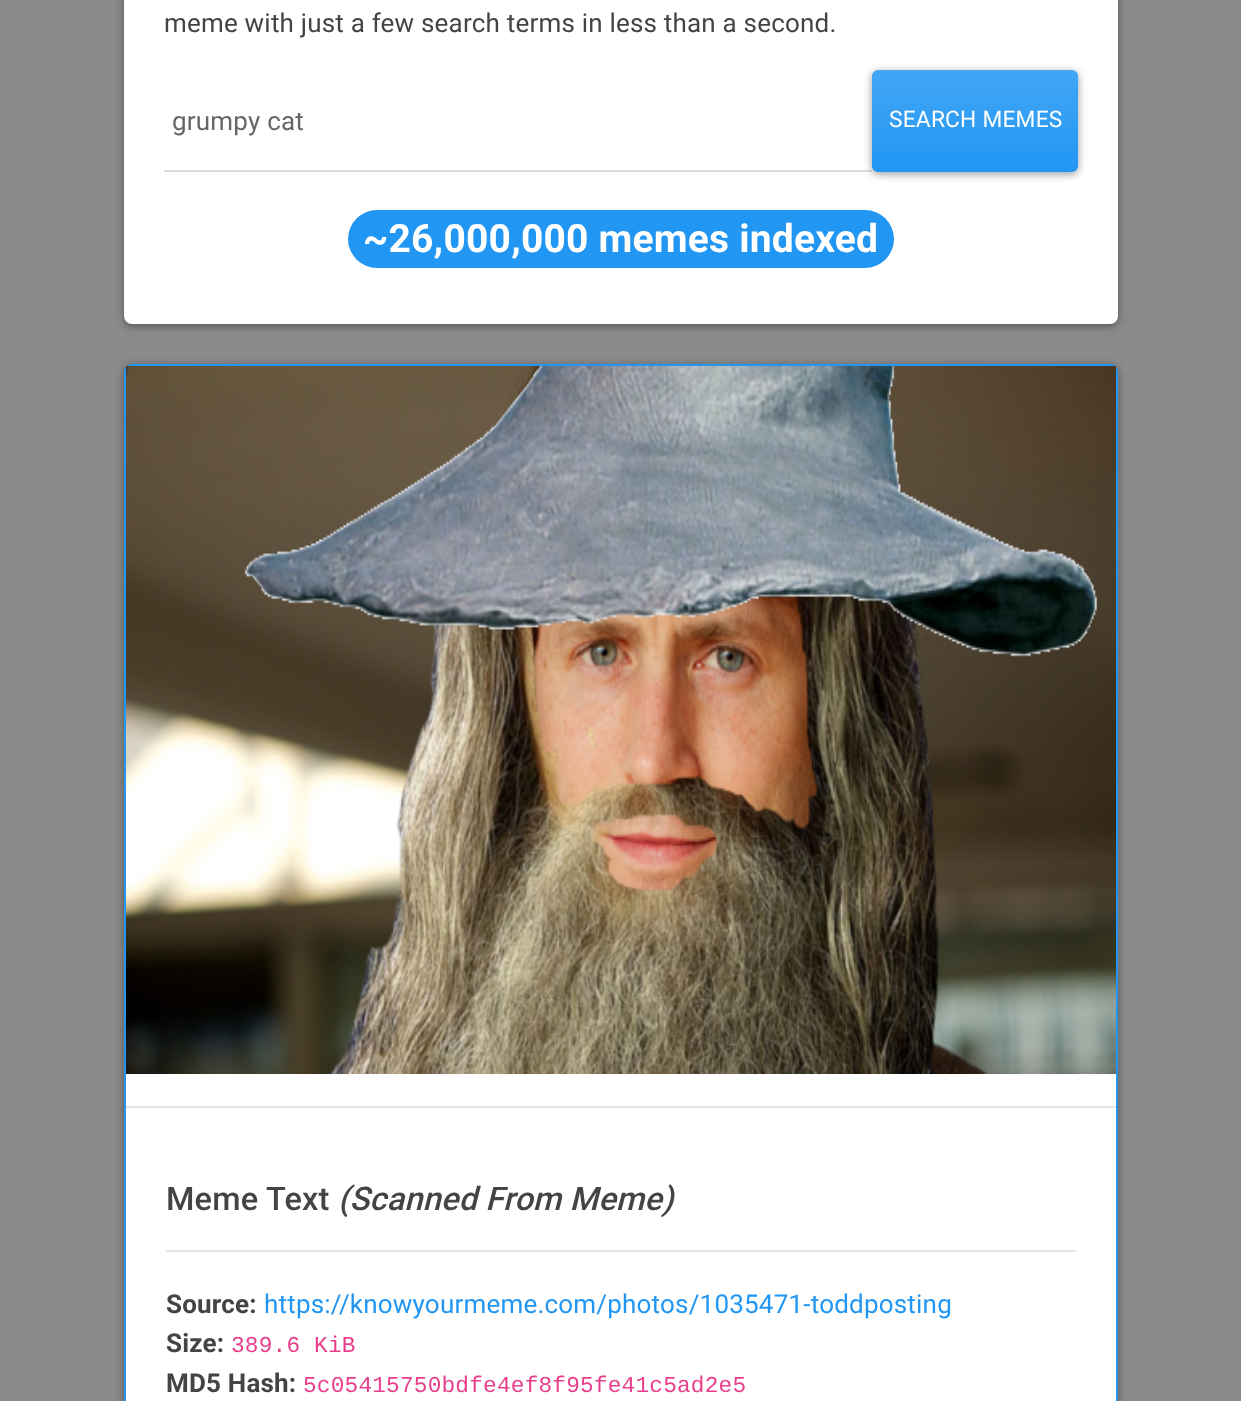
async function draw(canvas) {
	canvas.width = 1241;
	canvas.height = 1401;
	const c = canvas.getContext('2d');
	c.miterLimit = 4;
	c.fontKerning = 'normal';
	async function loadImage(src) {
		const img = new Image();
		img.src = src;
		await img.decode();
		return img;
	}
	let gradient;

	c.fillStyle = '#8b8b8b';
	c.fillRect(0, 0, 1241, 1401);
	c.fillStyle = '#00000066';
	c.filter = 'blur(4px)';
	c.beginPath();
	c.roundRect(124, -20, 994, 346, 8);
	c.fill();
	c.filter = 'none';
	c.fillStyle = '#fff';
	c.beginPath();
	c.roundRect(124, -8, 994, 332, 8);
	c.fill();
	c.letterSpacing = '0.2px';
	c.font = '26px Roboto';
	c.fillStyle = '#444';
	c.fillText('meme with just a few search terms in less than a second.', 164, 32);
	c.fillStyle = '#ddd';
	c.fillRect(164, 170, 708, 2);
	c.fillStyle = '#666';
	c.fillText('grumpy cat', 172, 130);
	c.fillStyle = '#00000066';
	c.filter = 'blur(4px)';
	c.beginPath();
	c.roundRect(872, 72, 206, 102, 6);
	c.fill();
	c.filter = 'none';
	gradient = c.createLinearGradient(975, 70, 975, 172);
	gradient.addColorStop(0, '#42a6f5');
	gradient.addColorStop(1, '#2196f3');
	c.fillStyle = gradient;
	c.beginPath();
	c.roundRect(872, 70, 206, 102, 6);
	c.fill();
	c.font = '22.75px Roboto';
	c.fillStyle = '#fff';
	c.fillText('SEARCH MEMES', 889, 127);
	c.fillStyle = '#2196f3';
	c.beginPath();
	c.roundRect(348, 210, 546, 58, 29);
	c.fill();
	c.font = 'bold 39px Roboto';
	c.fillStyle = '#fff';
	c.fillText('~26,000,000 memes indexed', 363, 252);
	c.fillStyle = '#00000066';
	c.filter = 'blur(4px)';
	c.beginPath();
	c.roundRect(124, 366, 994, 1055, 8);
	c.fill();
	c.filter = 'none';
	c.fillStyle = '#fff';
	c.beginPath();
	c.roundRect(125, 365, 992, 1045, 7);
	c.fill();
	c.strokeStyle = '#2196f3';
	c.lineWidth = 2;
	c.stroke();
	c.drawImage(await loadImage('img1.png'), 126, 366, 990, 708);
	c.fillStyle = '#e6e6e6';
	c.fillRect(126, 1106, 990, 2);
	c.font = '500 32.5px Roboto';
	c.fillStyle = '#444';
	c.fillText('Meme Text', 166, 1210);
	c.font = 'italic 500 32.5px Roboto';
	c.fillText('(Scanned From Meme)', 338, 1210);
	c.fillStyle = '#e6e6e6';
	c.fillRect(166, 1250, 910, 2);
	c.font = 'bold 26px Roboto';
	c.fillStyle = '#444';
	c.fillText('Source:', 166, 1313);
	c.font = '26px Roboto';
	c.fillStyle = '#2196f3';
	c.fillText('https://knowyourmeme.com/photos/1035471-toddposting', 264, 1313);
	c.font = 'bold 26px Roboto';
	c.fillStyle = '#444';
	c.fillText('Size:', 166, 1352);
	c.font = '22.75px Liberation Mono';
	c.fillStyle = '#e83e8c';
	c.fillText('389.6 KiB', 231, 1352);
	c.font = 'bold 26px Roboto';
	c.fillStyle = '#444';
	c.fillText('MD5 Hash:', 166, 1392);
	c.font = '22.75px Liberation Mono';
	c.fillStyle = '#e83e8c';
	c.fillText('5c05415750bdfe4ef8f95fe41c5ad2e5', 303, 1392);
}

draw(document.querySelector('canvas'));
